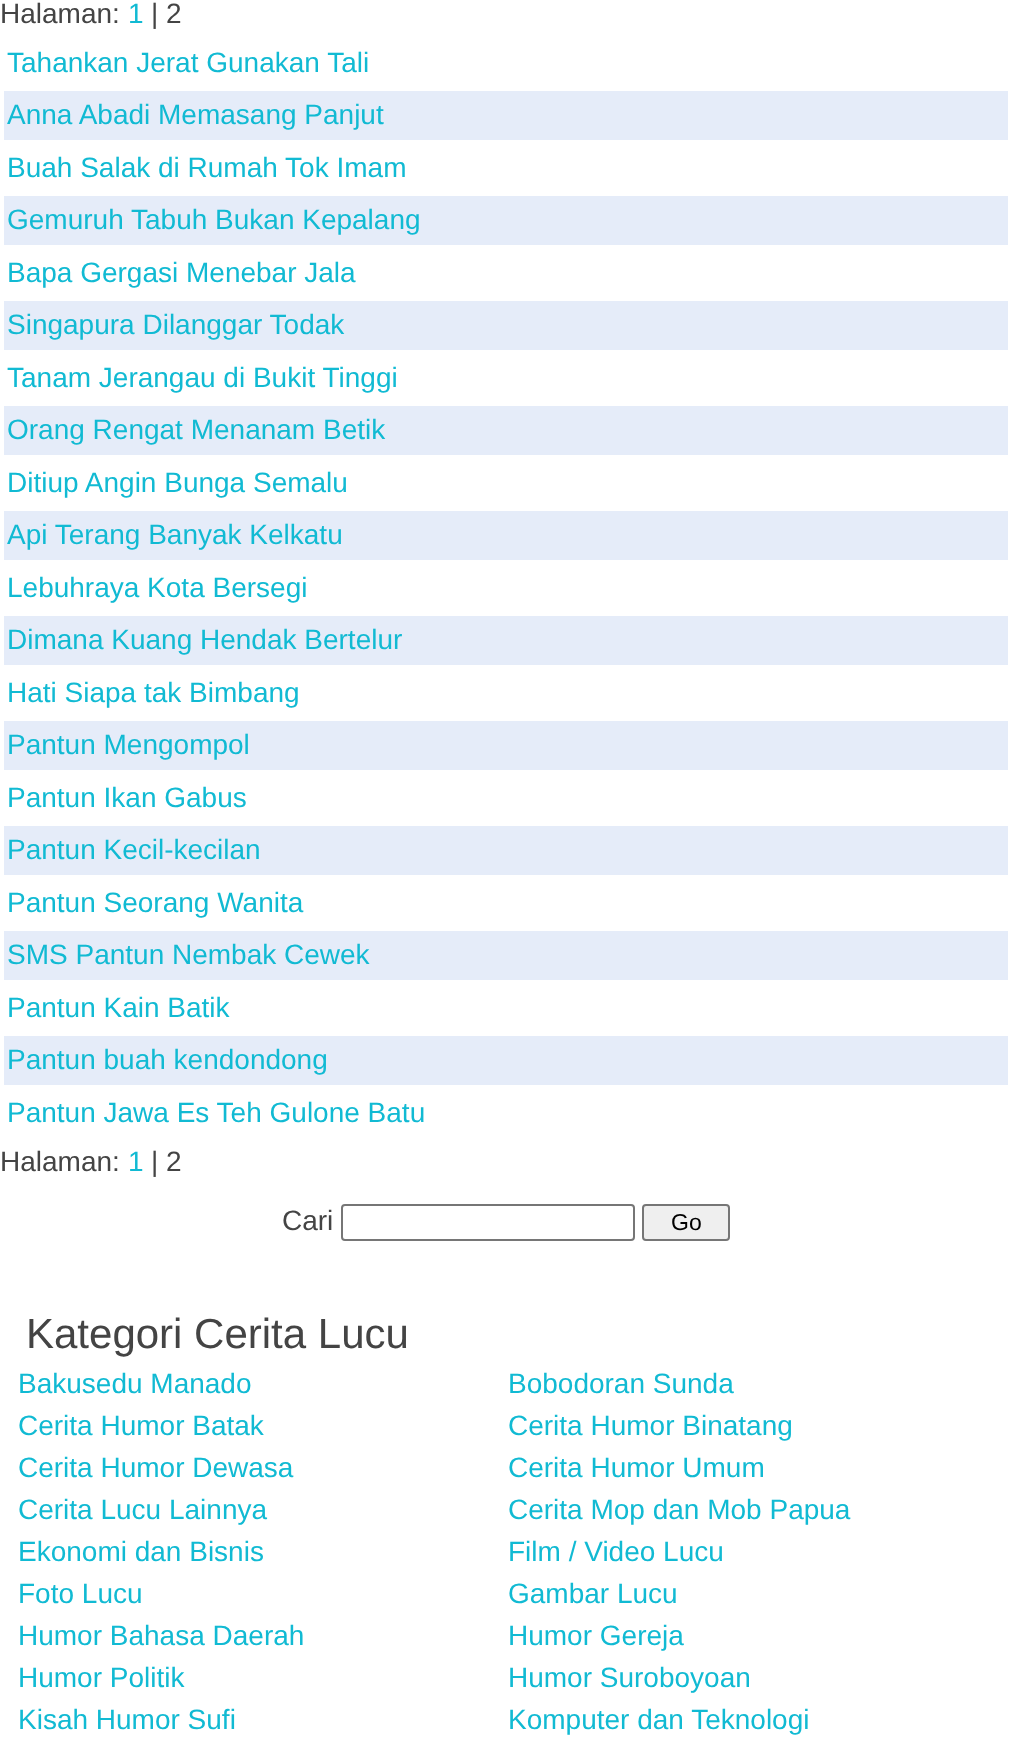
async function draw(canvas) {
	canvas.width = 1011;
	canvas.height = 1756;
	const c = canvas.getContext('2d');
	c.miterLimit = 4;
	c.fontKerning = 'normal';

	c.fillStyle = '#fff';
	c.fillRect(0, 0, 1011, 1756);
	c.font = '28px Liberation Sans';
	c.fillStyle = '#444';
	c.fillText('Halaman:', 0, 23);
	c.fillStyle = '#11bad3';
	c.fillText('1', 128, 23);
	c.fillStyle = '#444';
	c.fillText('| 2', 151, 23);
	c.fillStyle = '#11bad3';
	c.fillText('Tahankan Jerat Gunakan Tali', 7, 72);
	c.fillStyle = '#e5ecf9';
	c.fillRect(4, 91, 1004, 49);
	c.fillStyle = '#11bad3';
	c.fillText('Anna Abadi Memasang Panjut', 7, 124);
	c.fillText('Buah Salak di Rumah Tok Imam', 7, 177);
	c.fillStyle = '#e5ecf9';
	c.fillRect(4, 196, 1004, 49);
	c.fillStyle = '#11bad3';
	c.fillText('Gemuruh Tabuh Bukan Kepalang', 7, 229);
	c.fillText('Bapa Gergasi Menebar Jala', 7, 282);
	c.fillStyle = '#e5ecf9';
	c.fillRect(4, 301, 1004, 49);
	c.fillStyle = '#11bad3';
	c.fillText('Singapura Dilanggar Todak', 7, 334);
	c.fillText('Tanam Jerangau di Bukit Tinggi', 7, 387);
	c.fillStyle = '#e5ecf9';
	c.fillRect(4, 406, 1004, 49);
	c.fillStyle = '#11bad3';
	c.fillText('Orang Rengat Menanam Betik', 7, 439);
	c.fillText('Ditiup Angin Bunga Semalu', 7, 492);
	c.fillStyle = '#e5ecf9';
	c.fillRect(4, 511, 1004, 49);
	c.fillStyle = '#11bad3';
	c.fillText('Api Terang Banyak Kelkatu', 7, 544);
	c.fillText('Lebuhraya Kota Bersegi', 7, 597);
	c.fillStyle = '#e5ecf9';
	c.fillRect(4, 616, 1004, 49);
	c.fillStyle = '#11bad3';
	c.fillText('Dimana Kuang Hendak Bertelur', 7, 649);
	c.fillText('Hati Siapa tak Bimbang', 7, 702);
	c.fillStyle = '#e5ecf9';
	c.fillRect(4, 721, 1004, 49);
	c.fillStyle = '#11bad3';
	c.fillText('Pantun Mengompol', 7, 754);
	c.fillText('Pantun Ikan Gabus', 7, 807);
	c.fillStyle = '#e5ecf9';
	c.fillRect(4, 826, 1004, 49);
	c.fillStyle = '#11bad3';
	c.fillText('Pantun Kecil-kecilan', 7, 859);
	c.fillText('Pantun Seorang Wanita', 7, 912);
	c.fillStyle = '#e5ecf9';
	c.fillRect(4, 931, 1004, 49);
	c.fillStyle = '#11bad3';
	c.fillText('SMS Pantun Nembak Cewek', 7, 964);
	c.fillText('Pantun Kain Batik', 7, 1017);
	c.fillStyle = '#e5ecf9';
	c.fillRect(4, 1036, 1004, 49);
	c.fillStyle = '#11bad3';
	c.fillText('Pantun buah kendondong', 7, 1069);
	c.fillText('Pantun Jawa Es Teh Gulone Batu', 7, 1122);
	c.fillStyle = '#444';
	c.fillText('Halaman:', 0, 1171);
	c.fillStyle = '#11bad3';
	c.fillText('1', 128, 1171);
	c.fillStyle = '#444';
	c.fillText('| 2', 151, 1171);
	c.fillText('Cari', 282, 1230);
	c.beginPath();
	c.roundRect(342, 1205, 292, 35, 3);
	c.strokeStyle = '#767676';
	c.lineWidth = 2;
	c.stroke();
	c.fillStyle = '#efefef';
	c.beginPath();
	c.roundRect(643, 1205, 86, 35, 3);
	c.fill();
	c.stroke();
	c.font = '23px Liberation Sans';
	c.fillStyle = '#000';
	c.fillText('Go', 671, 1230);
	c.font = '42px Liberation Sans';
	c.fillStyle = '#444';
	c.fillText('Kategori Cerita Lucu', 26, 1348);
	c.font = '28px Liberation Sans';
	c.fillStyle = '#11bad3';
	for (const [text, x, y] of [
		['Bakusedu Manado', 18, 1393],
		['Bobodoran Sunda', 508, 1393],
		['Cerita Humor Batak', 18, 1435],
		['Cerita Humor Binatang', 508, 1435],
		['Cerita Humor Dewasa', 18, 1477],
		['Cerita Humor Umum', 508, 1477],
		['Cerita Lucu Lainnya', 18, 1519],
		['Cerita Mop dan Mob Papua', 508, 1519],
		['Ekonomi dan Bisnis', 18, 1561],
		['Film / Video Lucu', 508, 1561],
		['Foto Lucu', 18, 1603],
		['Gambar Lucu', 508, 1603],
		['Humor Bahasa Daerah', 18, 1645],
		['Humor Gereja', 508, 1645],
		['Humor Politik', 18, 1687],
		['Humor Suroboyoan', 508, 1687],
		['Kisah Humor Sufi', 18, 1729],
		['Komputer dan Teknologi', 508, 1729],
	]) {
		c.fillText(text, x, y);
	}
}

draw(document.querySelector('canvas'));
